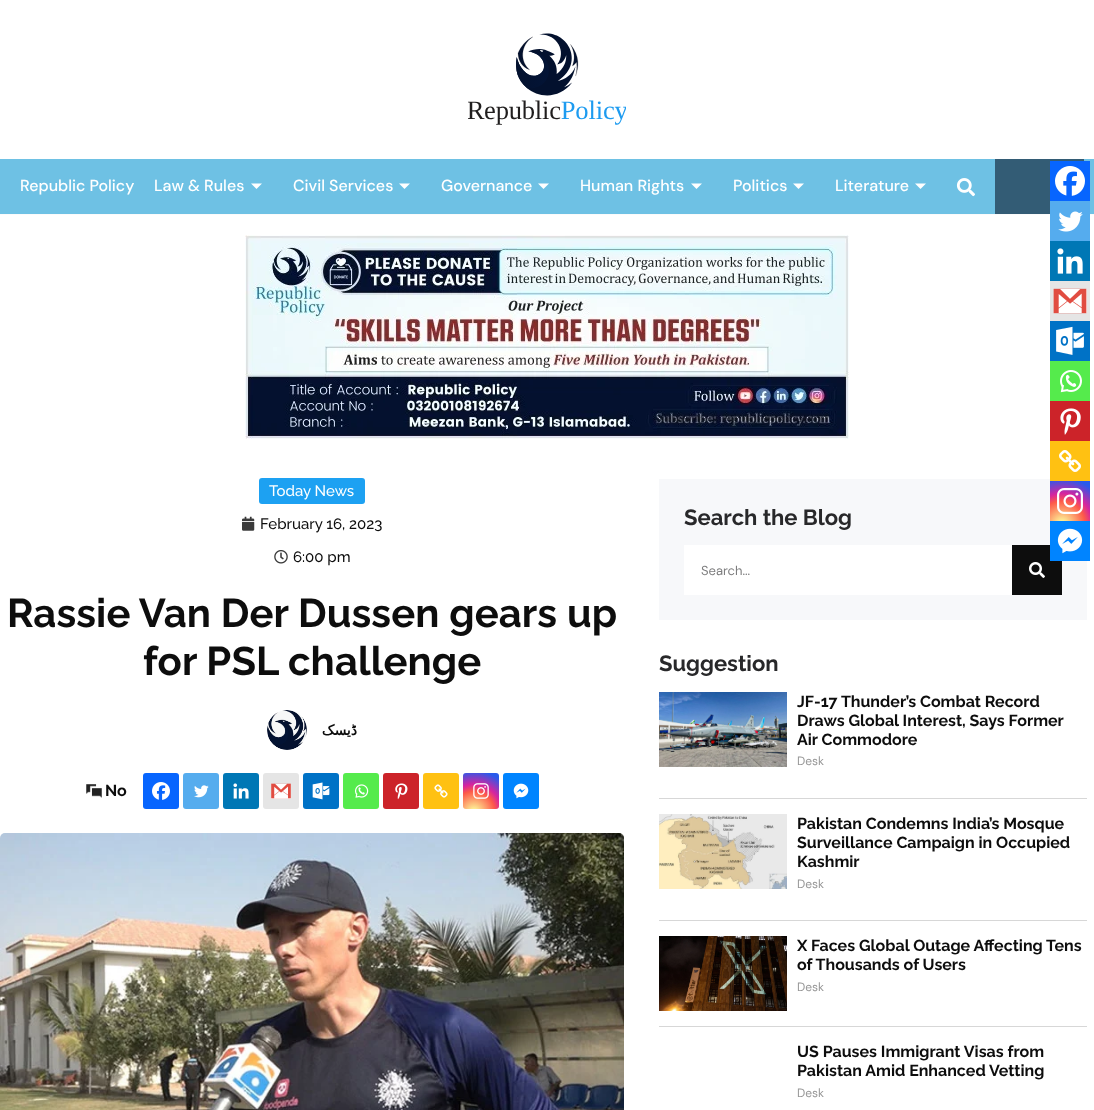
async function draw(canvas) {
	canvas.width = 1094;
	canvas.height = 1110;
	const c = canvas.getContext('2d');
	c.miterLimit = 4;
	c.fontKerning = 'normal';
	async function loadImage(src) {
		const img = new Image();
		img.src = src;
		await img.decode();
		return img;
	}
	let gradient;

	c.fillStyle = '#fff';
	c.fillRect(0, 0, 1094, 1110);
	c.drawImage(await loadImage('img1.png'), 468, 33, 158, 92);
	c.fillStyle = '#6ec1e4';
	c.fillRect(0, 159, 1094, 55);
	c.fillStyle = '#fbfbfb';
	c.fillRect(0, 214, 1094, 1);
	c.font = '500 16px DM Sans';
	c.fillStyle = '#fff';
	c.fillText('Republic Policy', 20, 191);
	c.fillText('Law & Rules', 154, 191);
	c.beginPath();
	c.moveTo(251, 183.5);
	c.lineTo(262, 183.5);
	c.lineTo(256.5, 189);
	c.closePath();
	c.fill();
	c.fillText('Civil Services', 293, 191);
	c.beginPath();
	c.moveTo(399, 183.5);
	c.lineTo(410, 183.5);
	c.lineTo(404.5, 189);
	c.closePath();
	c.fill();
	c.fillText('Governance', 441, 191);
	c.beginPath();
	c.moveTo(538, 183.5);
	c.lineTo(549, 183.5);
	c.lineTo(543.5, 189);
	c.closePath();
	c.fill();
	c.fillText('Human Rights', 580, 191);
	c.beginPath();
	c.moveTo(691, 183.5);
	c.lineTo(702, 183.5);
	c.lineTo(696.5, 189);
	c.closePath();
	c.fill();
	c.fillText('Politics', 733, 191);
	c.beginPath();
	c.moveTo(793, 183.5);
	c.lineTo(804, 183.5);
	c.lineTo(798.5, 189);
	c.closePath();
	c.fill();
	c.fillText('Literature', 835, 191);
	c.beginPath();
	c.moveTo(915, 183.5);
	c.lineTo(926, 183.5);
	c.lineTo(920.5, 189);
	c.closePath();
	c.fill();
	c.drawImage(await loadImage('img2.png'), 956, 178, 19, 19);
	c.fillStyle = '#335c75';
	c.fillRect(995, 159, 89, 55);
	c.drawImage(await loadImage('img3.png'), 245, 235, 604, 204);
	c.fillStyle = '#1da1f2';
	c.beginPath();
	c.roundRect(259, 478, 106, 26, 3);
	c.fill();
	c.font = '500 15px Raleway';
	c.fillStyle = '#fff';
	c.fillText('Today News', 269, 496);
	c.drawImage(await loadImage('img4.png'), 242, 516, 13, 15);
	c.fillStyle = '#0d0d0d';
	c.fillText('February 16, 2023', 260, 529);
	c.drawImage(await loadImage('img5.png'), 274, 550, 14, 14);
	c.fillText('6:00 pm', 293, 562);
	c.fillStyle = '#0765fe';
	c.fillRect(1050, 161, 40, 40);
	c.drawImage(await loadImage('img6.png'), 1055, 166, 30, 30);
	c.fillStyle = '#55acee';
	c.fillRect(1050, 201, 40, 40);
	c.drawImage(await loadImage('img7.png'), 1058, 211, 25, 21);
	c.fillStyle = '#0077b5';
	c.fillRect(1050, 241, 40, 40);
	c.drawImage(await loadImage('img8.png'), 1057, 248, 26, 26);
	c.fillStyle = '#e5e5e5';
	c.fillRect(1050, 281, 40, 40);
	c.drawImage(await loadImage('img9.png'), 1053, 288, 34, 26);
	c.fillStyle = '#0072c6';
	c.fillRect(1050, 321, 40, 40);
	c.drawImage(await loadImage('img10.png'), 1056, 326, 28, 29);
	c.fillStyle = '#55eb4c';
	c.fillRect(1050, 361, 40, 40);
	c.drawImage(await loadImage('img11.png'), 1060, 370, 22, 23);
	c.fillStyle = '#cc2329';
	c.fillRect(1050, 401, 40, 40);
	c.drawImage(await loadImage('img12.png'), 1060, 408, 21, 27);
	c.fillStyle = '#ffc112';
	c.fillRect(1050, 441, 40, 40);
	c.drawImage(await loadImage('img13.png'), 1059, 450, 22, 22);
	gradient = c.createRadialGradient(1062, 524, 0, 1062, 524, 51);
	gradient.addColorStop(0, '#fdf497');
	gradient.addColorStop(0.05, '#fdf497');
	gradient.addColorStop(0.45, '#fd5949');
	gradient.addColorStop(0.6, '#d6249f');
	gradient.addColorStop(0.9, '#285aeb');
	c.fillStyle = gradient;
	c.fillRect(1050, 481, 40, 40);
	c.drawImage(await loadImage('img14.png'), 1057, 488, 26, 26);
	for (const [x, y, w, h, color] of [
		[659, 530, 428, 90, '#f7f8fa'],
		[1012, 545, 50, 50, '#0d0d0d'],
		[1050, 521, 40, 40, '#0084ff'],
	]) {
		c.fillStyle = color;
		c.fillRect(x, y, w, h);
	}
	c.drawImage(await loadImage('img15.png'), 1057, 528, 26, 26);
	c.letterSpacing = '0.1px';
	c.font = 'bold 40px Raleway';
	c.fillStyle = '#0d0d0d';
	c.fillText('Rassie Van Der Dussen gears up', 7, 627);
	c.fillText('for PSL challenge', 143, 675);
	c.drawImage(await loadImage('img16.png'), 267, 710, 40, 40);
	c.letterSpacing = '0px';
	c.direction = 'rtl';
	c.font = 'bold 14px DejaVu Sans';
	c.fillText('ڈیسک', 357, 735);
	c.drawImage(await loadImage('img17.png'), 86, 784, 16, 14);
	c.direction = 'ltr';
	c.font = 'bold 16px Raleway';
	c.fillText('No', 105, 796);
	c.fillStyle = '#0765fe';
	c.beginPath();
	c.roundRect(143, 773, 36, 36, 3);
	c.fill();
	c.drawImage(await loadImage('img18.png'), 152, 782, 18, 18);
	c.fillStyle = '#55acee';
	c.beginPath();
	c.roundRect(183, 773, 36, 36, 3);
	c.fill();
	c.drawImage(await loadImage('img19.png'), 194, 785, 15, 13);
	c.fillStyle = '#0077b5';
	c.beginPath();
	c.roundRect(223, 773, 36, 36, 3);
	c.fill();
	c.drawImage(await loadImage('img20.png'), 233, 783, 16, 16);
	c.fillStyle = '#e5e5e5';
	c.beginPath();
	c.roundRect(263, 773, 36, 36, 3);
	c.fill();
	c.drawImage(await loadImage('img21.png'), 271, 783, 20, 16);
	c.fillStyle = '#0072c6';
	c.beginPath();
	c.roundRect(303, 773, 36, 36, 3);
	c.fill();
	c.drawImage(await loadImage('img22.png'), 312, 782, 18, 18);
	c.fillStyle = '#55eb4c';
	c.beginPath();
	c.roundRect(343, 773, 36, 36, 3);
	c.fill();
	c.drawImage(await loadImage('img23.png'), 355, 784, 14, 14);
	c.fillStyle = '#cc2329';
	c.beginPath();
	c.roundRect(383, 773, 36, 36, 3);
	c.fill();
	c.drawImage(await loadImage('img24.png'), 395, 783, 13, 17);
	c.fillStyle = '#ffc112';
	c.beginPath();
	c.roundRect(423, 773, 36, 36, 3);
	c.fill();
	c.drawImage(await loadImage('img25.png'), 434, 784, 14, 14);
	gradient = c.createRadialGradient(474, 812, 0, 474, 812, 46);
	gradient.addColorStop(0, '#fdf497');
	gradient.addColorStop(0.05, '#fdf497');
	gradient.addColorStop(0.45, '#fd5949');
	gradient.addColorStop(0.6, '#d6249f');
	gradient.addColorStop(0.9, '#285aeb');
	c.fillStyle = gradient;
	c.beginPath();
	c.roundRect(463, 773, 36, 36, 3);
	c.fill();
	c.drawImage(await loadImage('img26.png'), 473, 783, 16, 16);
	c.fillStyle = '#0084ff';
	c.beginPath();
	c.roundRect(503, 773, 36, 36, 3);
	c.fill();
	c.drawImage(await loadImage('img27.png'), 513, 783, 16, 16);
	c.drawImage(await loadImage('img28.png'), 0, 833, 624, 277);
	c.fillStyle = '#f7f8fa';
	c.fillRect(659, 479, 391, 51);
	c.font = 'bold 22px Raleway';
	c.fillStyle = '#28282a';
	c.fillText('Search the Blog', 684, 525);
	c.fillStyle = '#fff';
	c.fillRect(684, 545, 328, 50);
	c.font = '13px DM Sans';
	c.fillStyle = '#7e7e7f';
	c.fillText('Search...', 701, 575);
	c.drawImage(await loadImage('img29.png'), 1029, 562, 16, 16);
	c.font = 'bold 22px Raleway';
	c.fillStyle = '#28282a';
	c.fillText('Suggestion', 659, 671);
	c.fillStyle = '#d7d7d7';
	c.fillRect(659, 798, 428, 1);
	c.drawImage(await loadImage('img30.png'), 659, 692, 128, 75);
	c.font = 'bold 16px Raleway';
	c.fillStyle = '#0d0d0d';
	for (const [text, x, y] of [
		['JF-17 Thunder’s Combat Record', 797, 707],
		['Draws Global Interest, Says Former', 797, 726],
		['Air Commodore', 797, 745],
	]) {
		c.fillText(text, x, y);
	}
	c.font = '12px DM Sans';
	c.fillStyle = '#979797';
	c.fillText('Desk', 797, 765);
	c.fillStyle = '#d7d7d7';
	c.fillRect(659, 920, 428, 1);
	c.drawImage(await loadImage('img31.png'), 659, 814, 128, 75);
	c.font = 'bold 16px Raleway';
	c.fillStyle = '#0d0d0d';
	for (const [text, x, y] of [
		['Pakistan Condemns India’s Mosque', 797, 829],
		['Surveillance Campaign in Occupied', 797, 848],
		['Kashmir', 797, 867],
	]) {
		c.fillText(text, x, y);
	}
	c.font = '12px DM Sans';
	c.fillStyle = '#979797';
	c.fillText('Desk', 797, 888);
	c.fillStyle = '#d7d7d7';
	c.fillRect(659, 1026, 428, 1);
	c.drawImage(await loadImage('img32.png'), 659, 936, 128, 75);
	c.font = 'bold 16px Raleway';
	c.fillStyle = '#0d0d0d';
	c.fillText('X Faces Global Outage Affecting Tens', 797, 951);
	c.fillText('of Thousands of Users', 797, 970);
	c.font = '12px DM Sans';
	c.fillStyle = '#979797';
	c.fillText('Desk', 797, 991);
	c.font = 'bold 16px Raleway';
	c.fillStyle = '#0d0d0d';
	c.fillText('US Pauses Immigrant Visas from', 797, 1057);
	c.fillText('Pakistan Amid Enhanced Vetting', 797, 1076);
	c.font = '12px DM Sans';
	c.fillStyle = '#979797';
	c.fillText('Desk', 797, 1097);
}

draw(document.querySelector('canvas'));
